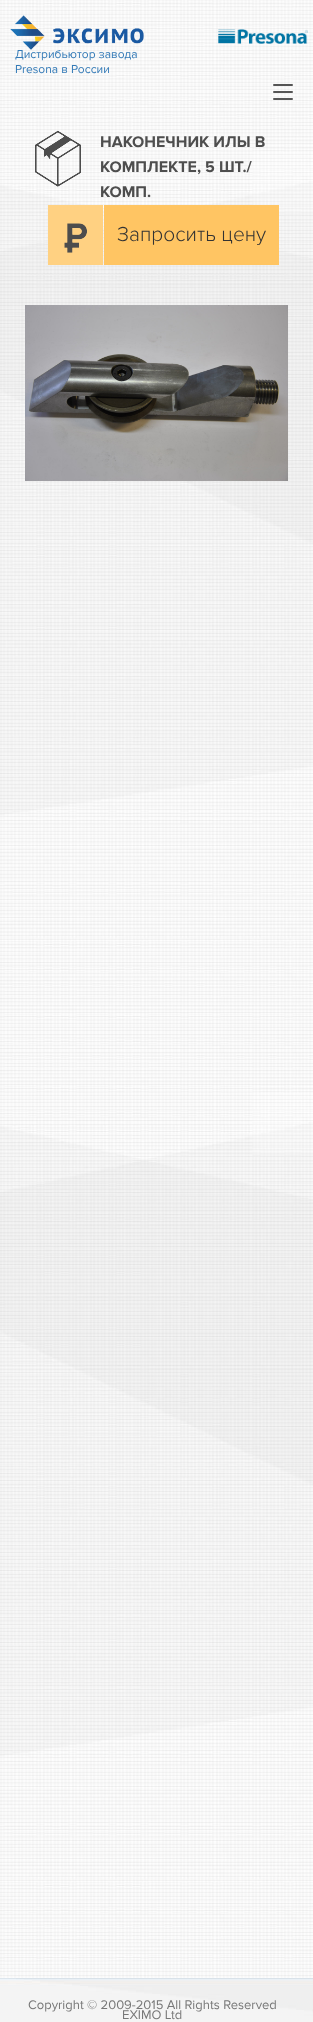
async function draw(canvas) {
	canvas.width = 313;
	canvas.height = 2022;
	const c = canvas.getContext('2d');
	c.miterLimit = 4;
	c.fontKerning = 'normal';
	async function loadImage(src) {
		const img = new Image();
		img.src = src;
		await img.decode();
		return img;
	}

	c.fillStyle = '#fff';
	c.fillRect(0, 0, 313, 2022);
	c.drawImage(await loadImage('img1.png'), 0, 0, 313, 1978);
	c.drawImage(await loadImage('img2.png'), 218, 29, 90, 15);
	c.drawImage(await loadImage('img3.png'), 10, 15, 134, 35);
	c.font = '12px Proxima Nova';
	c.fillStyle = '#337ab7';
	c.fillText('Дистрибьютор завода', 15, 58);
	c.fillText('Presona в России', 15, 73);
	c.fillStyle = '#555';
	c.beginPath();
	c.roundRect(273, 84, 20, 2, 1);
	c.fill();
	c.beginPath();
	c.roundRect(273, 91, 20, 2, 1);
	c.fill();
	c.beginPath();
	c.roundRect(273, 98, 20, 2, 1);
	c.fill();
	c.fillStyle = '#eee';
	c.fillRect(25, 274, 263, 1);
	c.drawImage(await loadImage('img4.png'), 35, 130, 46, 57);
	c.font = 'bold 16px Proxima Nova';
	c.fillStyle = '#4e4e4e';
	for (const [text, x, y] of [
		['НАКОНЕЧНИК ИЛЫ В', 100, 147],
		['КОМПЛЕКТЕ, 5 ШТ./', 100, 172],
		['КОМП.', 100, 197],
	]) {
		c.fillText(text, x, y);
	}
	c.fillStyle = '#ffd182';
	c.fillRect(48, 205, 55, 60);
	c.drawImage(await loadImage('img5.png'), 64, 223, 23, 30);
	c.fillStyle = '#ffc563';
	c.fillRect(104, 205, 175, 60);
	c.font = '300 21px Proxima Nova';
	c.fillStyle = '#333';
	c.fillText('Запросить цену', 117, 241);
	c.drawImage(await loadImage('img6.png'), 25, 305, 263, 176);
	c.drawImage(await loadImage('img7.png'), 0, 1978, 313, 44);
	c.font = '13px Proxima Nova';
	c.fillStyle = '#777';
	c.fillText('Copyright © 2009-2015 All Rights Reserved', 28, 2009);
	c.fillText('EXIMO Ltd', 122, 2019);
}

draw(document.querySelector('canvas'));
